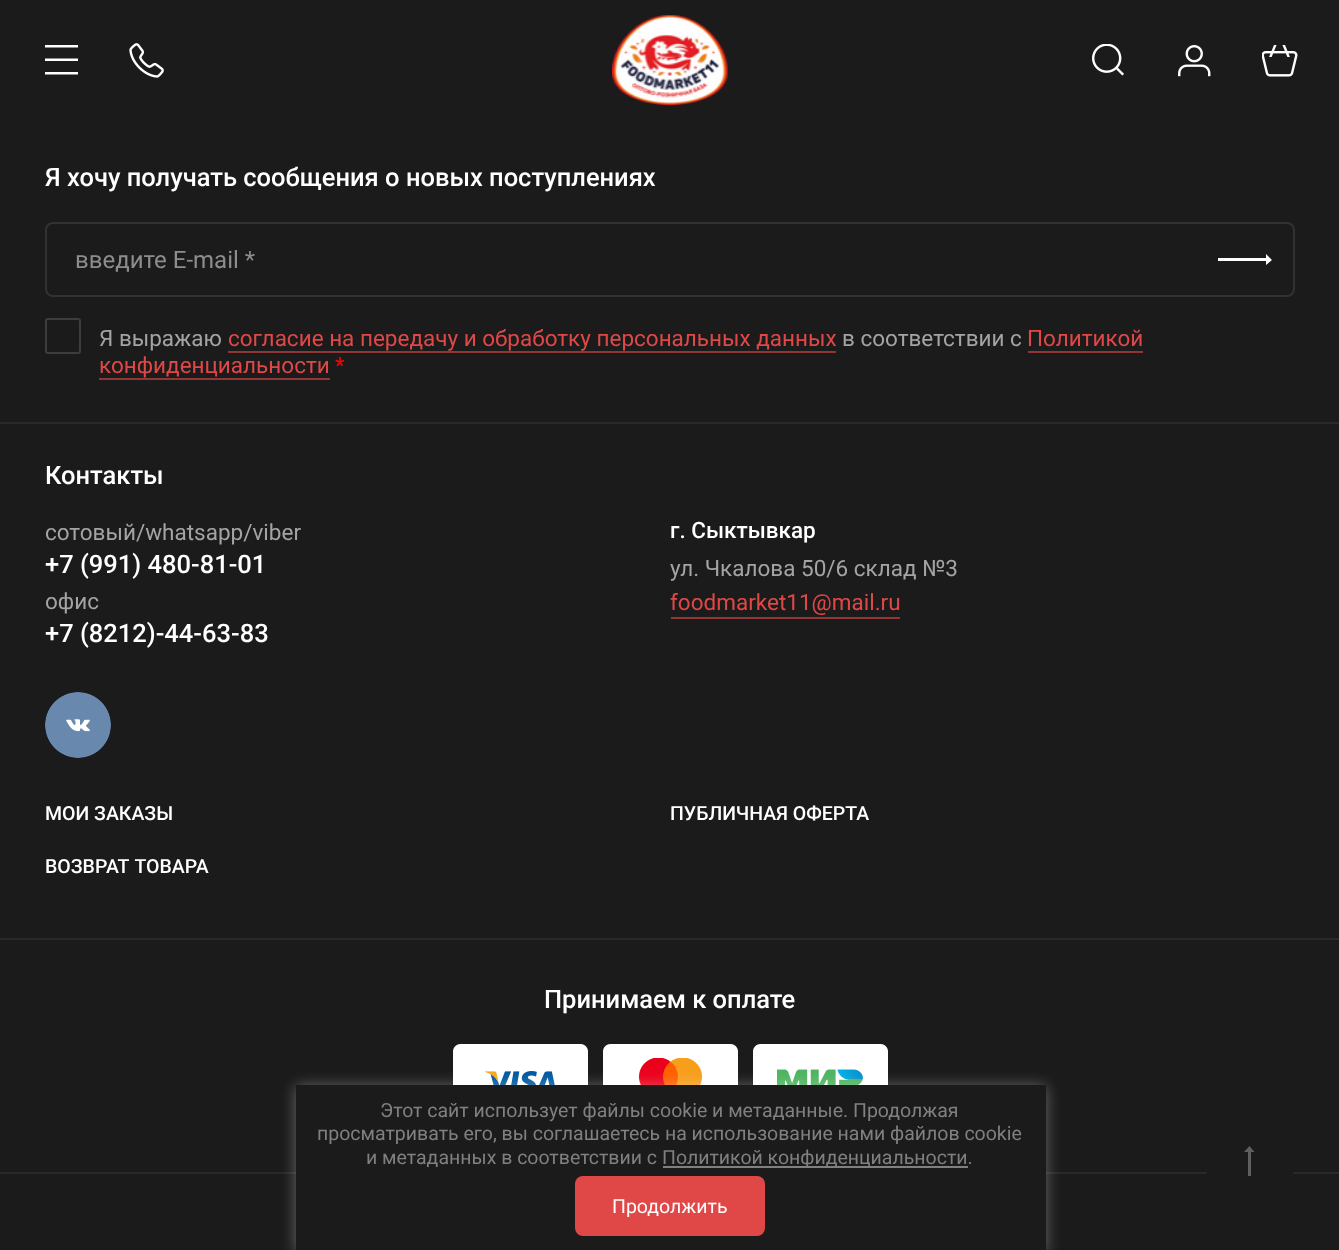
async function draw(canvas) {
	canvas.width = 1339;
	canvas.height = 1250;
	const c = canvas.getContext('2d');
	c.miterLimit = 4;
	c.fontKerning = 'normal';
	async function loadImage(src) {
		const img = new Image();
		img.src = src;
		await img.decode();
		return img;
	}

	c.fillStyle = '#1b1b1b';
	c.fillRect(0, 0, 1339, 1250);
	c.fillStyle = '#fff';
	c.beginPath();
	c.moveTo(78, 47.5);
	c.lineTo(45, 47.5);
	c.lineTo(45, 45);
	c.lineTo(78, 45);
	c.closePath();
	c.moveTo(78, 61);
	c.lineTo(45, 61);
	c.lineTo(45, 58.5);
	c.lineTo(78, 58.5);
	c.closePath();
	c.moveTo(45, 74.5);
	c.lineTo(78, 74.5);
	c.lineTo(78, 72);
	c.lineTo(45, 72);
	c.closePath();
	c.fill('evenodd');
	c.drawImage(await loadImage('img1.png'), 129, 43, 35, 35);
	c.drawImage(await loadImage('img2.png'), 612, 15, 116, 90);
	c.drawImage(await loadImage('img3.png'), 1092, 44, 32, 32);
	c.drawImage(await loadImage('img4.png'), 1178, 45, 33, 32);
	c.drawImage(await loadImage('img5.png'), 1262, 45, 36, 32);
	c.font = '500 25.5px Roboto';
	c.fillText('Я хочу получать сообщения о новых поступлениях', 45, 186);
	c.beginPath();
	c.roundRect(46, 223, 1248, 73, 7);
	c.strokeStyle = '#323232';
	c.lineWidth = 2;
	c.stroke();
	c.font = '24px Roboto';
	c.fillStyle = '#8d8d8d';
	c.fillText('введите E-mail *', 75, 268);
	c.fillStyle = '#fff';
	c.beginPath();
	c.moveTo(1266, 261);
	c.lineTo(1266, 265);
	c.lineTo(1272, 260);
	c.lineTo(1266, 254);
	c.lineTo(1266, 258);
	c.lineTo(1218, 258);
	c.lineTo(1218, 261);
	c.closePath();
	c.fill();
	c.beginPath();
	c.roundRect(46, 319, 34, 34, 2);
	c.strokeStyle = '#3d3d3d';
	c.stroke();
	c.font = '22.5px Roboto';
	c.fillStyle = '#a4a4a4';
	c.fillText('Я выражаю', 99, 346);
	c.fillStyle = '#e04848';
	c.fillText('согласие на передачу и обработку персональных данных', 228, 346);
	c.fillStyle = '#913636';
	c.fillRect(228, 351, 608, 2);
	c.fillStyle = '#a4a4a4';
	c.fillText('в соответствии с', 842, 346);
	c.fillStyle = '#e04848';
	c.fillText('Политикой', 1027, 346);
	c.fillStyle = '#913636';
	c.fillRect(1028, 351, 115, 2);
	c.fillStyle = '#e04848';
	c.fillText('конфиденциальности', 99, 373);
	c.fillStyle = '#913636';
	c.fillRect(99, 378, 231, 2);
	c.fillStyle = '#f00';
	c.fillText('*', 335, 373);
	c.fillStyle = '#292929';
	c.fillRect(0, 422, 1339, 2);
	c.font = '500 25.5px Roboto';
	c.fillStyle = '#fff';
	c.fillText('Контакты', 45, 484);
	c.font = '22.5px Roboto';
	c.fillStyle = '#a4a4a4';
	c.fillText('сотовый/whatsapp/viber', 45, 540);
	c.font = '500 25.5px Roboto';
	c.fillStyle = '#fff';
	c.fillText('+7 (991) 480-81-01', 45, 573);
	c.font = '22.5px Roboto';
	c.fillStyle = '#a4a4a4';
	c.fillText('офис', 45, 609);
	c.font = '500 25.5px Roboto';
	c.fillStyle = '#fff';
	c.fillText('+7 (8212)-44-63-83', 45, 642);
	c.font = '500 22.5px Roboto';
	c.fillText('г. Сыктывкар', 670, 538);
	c.font = '22.5px Roboto';
	c.fillStyle = '#a4a4a4';
	c.fillText('ул. Чкалова 50/6 склад №3', 670, 576);
	c.fillStyle = '#e04848';
	c.fillText('foodmarket11@mail.ru', 670, 610);
	c.fillStyle = '#913636';
	c.fillRect(671, 617, 229, 2);
	c.drawImage(await loadImage('img6.png'), 45, 692, 66, 66);
	c.font = '500 19.5px Roboto';
	c.fillStyle = '#fff';
	c.fillText('МОИ ЗАКАЗЫ', 45, 820);
	c.fillText('ПУБЛИЧНАЯ ОФЕРТА', 670, 820);
	c.wordSpacing = '1px';
	c.fillText('ВОЗВРАТ ТОВАРА', 45, 873);
	c.fillStyle = '#292929';
	c.fillRect(0, 938, 1339, 2);
	c.wordSpacing = '0px';
	c.font = '500 25.5px Roboto';
	c.fillStyle = '#fff';
	c.fillText('Принимаем к оплате', 544, 1008);
	c.drawImage(await loadImage('img7.png'), 453, 1044, 135, 41);
	c.drawImage(await loadImage('img8.png'), 603, 1044, 135, 41);
	c.drawImage(await loadImage('img9.png'), 753, 1044, 135, 41);
	c.fillStyle = '#292929';
	c.fillRect(0, 1172, 1339, 2);
	c.fillStyle = '#1b1b1b';
	c.beginPath();
	c.arc(1250, 1161, 45, 0, 2 * Math.PI);
	c.fill();
	c.fillStyle = '#5f5f5f';
	c.beginPath();
	c.moveTo(1251, 1152);
	c.lineTo(1254.5, 1152);
	c.lineTo(1249.5, 1146);
	c.lineTo(1244, 1152);
	c.lineTo(1248, 1152);
	c.lineTo(1248, 1176);
	c.lineTo(1251, 1176);
	c.closePath();
	c.fill('evenodd');
	c.fillStyle = '#ffffff59';
	c.filter = 'blur(7.5px)';
	c.beginPath();
	c.rect(296, 1086, 750, 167);
	c.fill();
	c.filter = 'none';
	c.fillStyle = '#1b1b1b';
	c.fillRect(296, 1085, 750, 165);
	c.font = '19.5px Roboto';
	c.fillStyle = '#808080';
	for (const [text, x, y] of [
		['Этот сайт использует файлы cookie и метаданные. Продолжая', 380, 1117],
		['просматривать его, вы соглашаетесь на использование нами файлов cookie', 317, 1140],
		['и метаданных в соответствии с', 366, 1164],
	]) {
		c.fillText(text, x, y);
	}
	c.fillRect(663, 1166, 305, 2);
	c.fillText('Политикой конфиденциальности.', 662, 1164);
	c.fillStyle = '#e04848';
	c.beginPath();
	c.roundRect(575, 1176, 190, 60, 8);
	c.fill();
	c.fillStyle = '#fff';
	c.fillText('Продолжить', 612, 1213);
}

draw(document.querySelector('canvas'));
